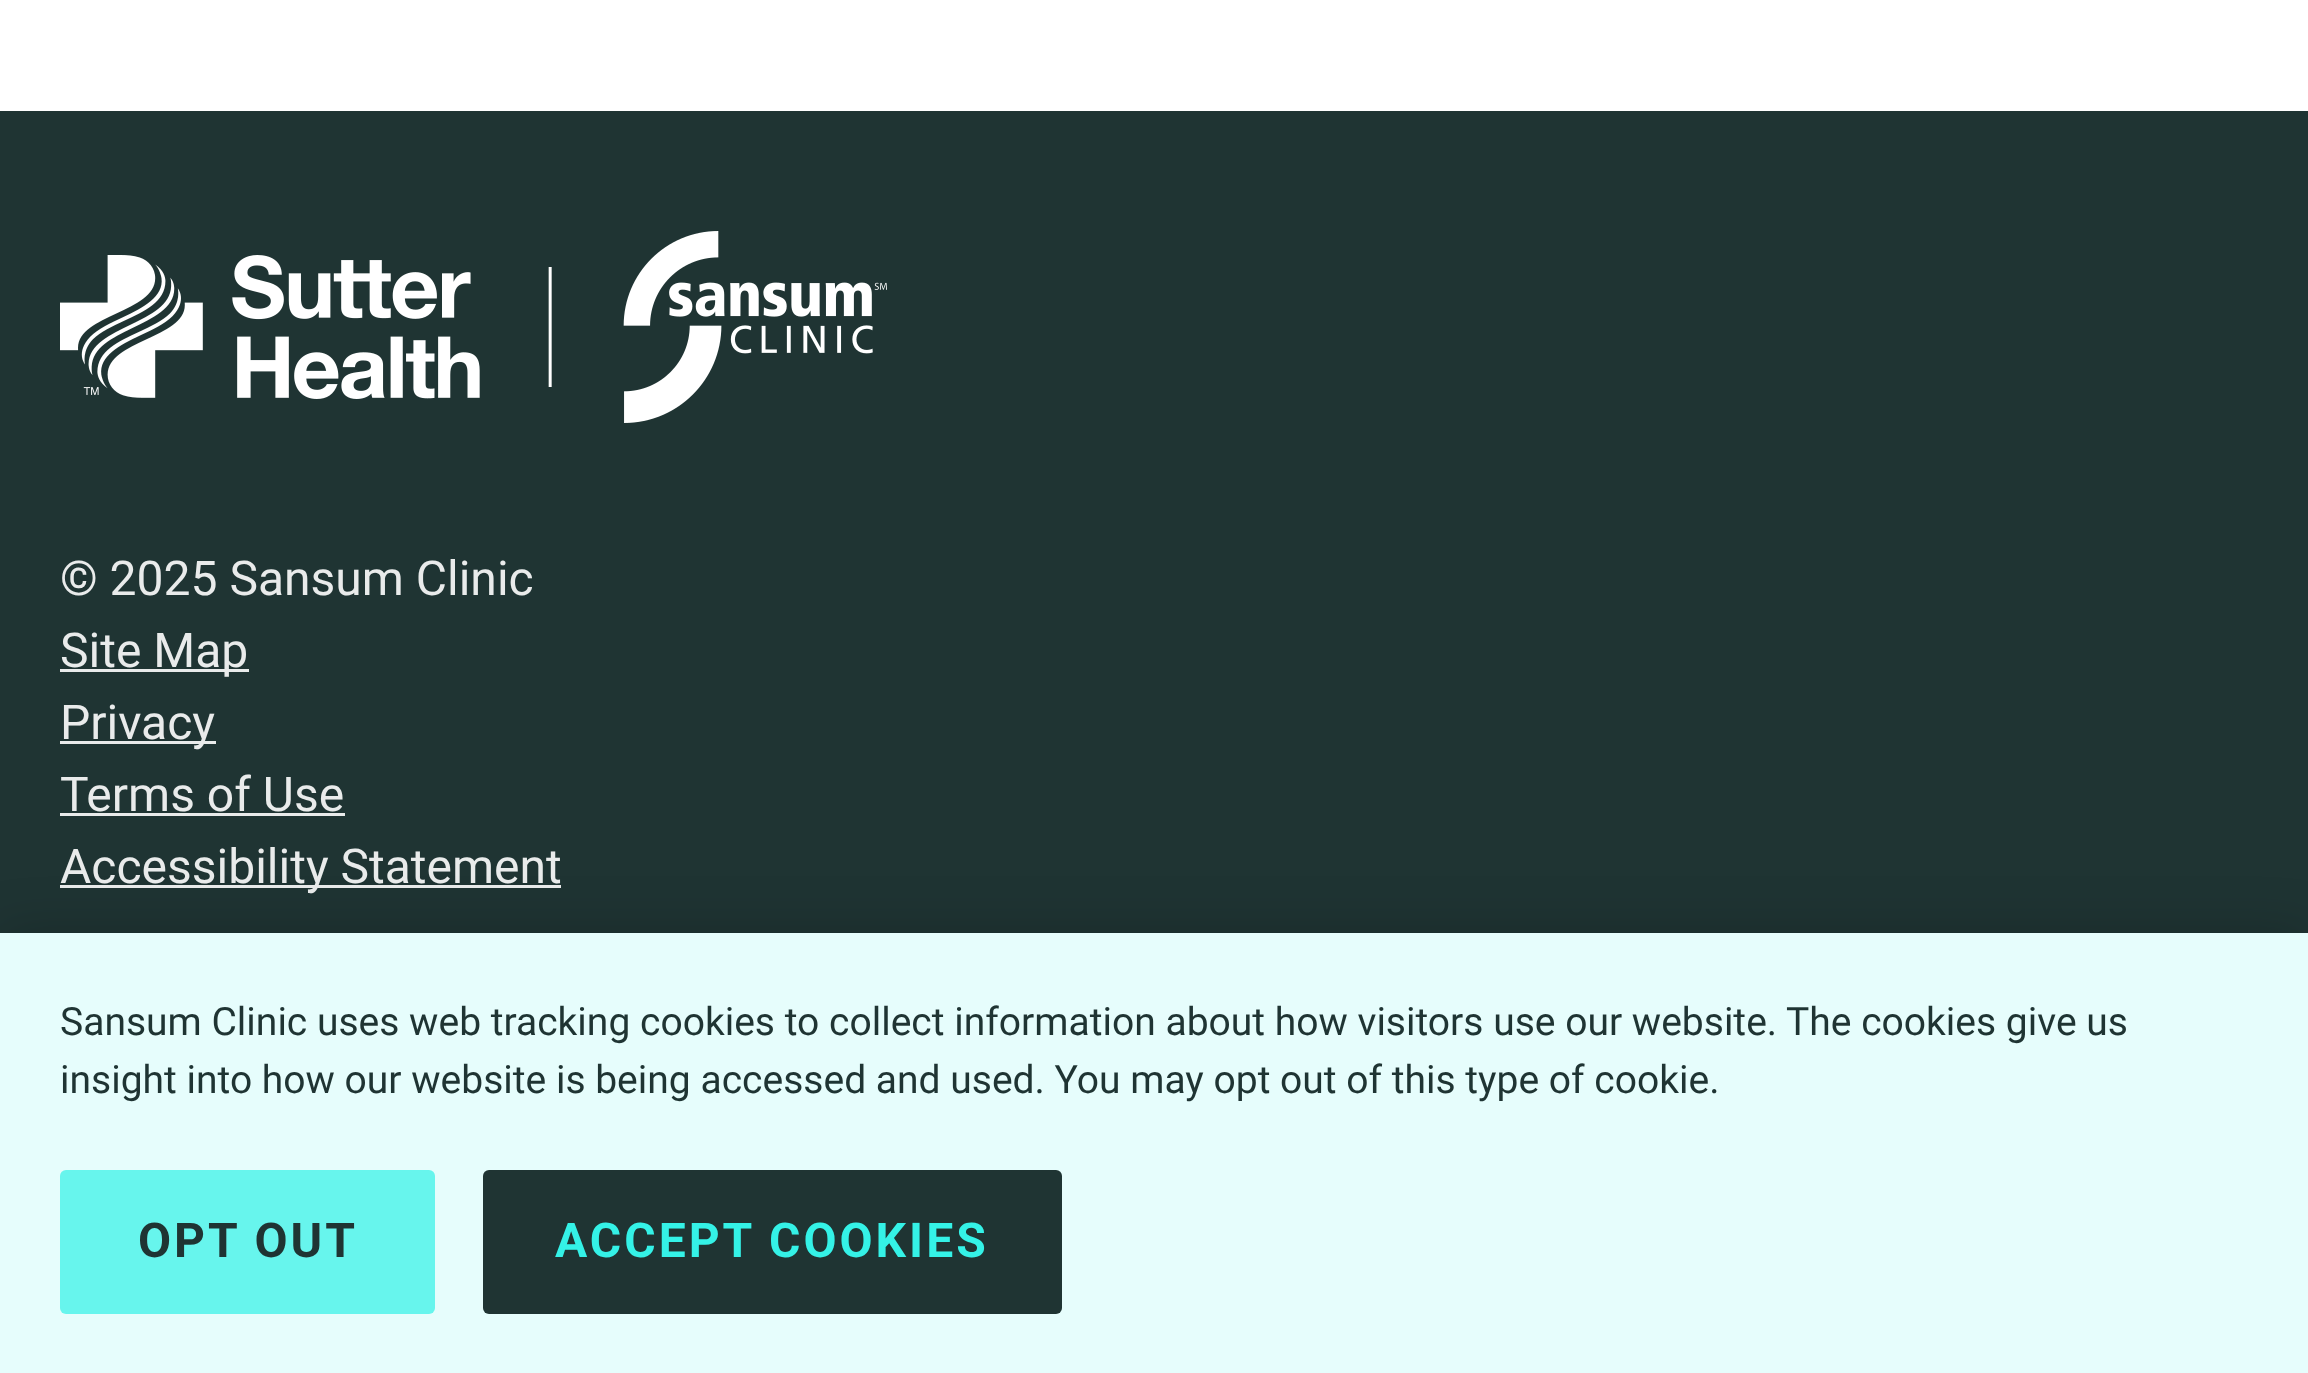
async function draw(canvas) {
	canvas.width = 2308;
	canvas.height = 1373;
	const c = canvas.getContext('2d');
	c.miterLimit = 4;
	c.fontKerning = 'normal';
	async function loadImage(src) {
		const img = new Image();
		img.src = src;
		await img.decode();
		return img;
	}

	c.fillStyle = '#fff';
	c.fillRect(0, 0, 2308, 1373);
	c.fillStyle = '#1f3433';
	c.fillRect(0, 111, 2308, 822);
	c.drawImage(await loadImage('img1.png'), 60, 231, 827, 192);
	c.font = '48px Roboto';
	c.fillStyle = '#e9ebeb';
	c.fillText('© 2025 Sansum Clinic', 60, 595);
	c.fillRect(60, 669, 189, 3);
	c.fillText('Site Map', 60, 667);
	c.fillRect(60, 741, 156, 3);
	c.fillText('Privacy', 60, 739);
	c.fillText('Terms of Use', 60, 811);
	c.fillRect(60, 813, 285, 3);
	c.fillRect(60, 885, 501, 3);
	c.fillText('Accessibility Statement', 60, 883);
	c.fillStyle = '#00000033';
	c.filter = 'blur(27px)';
	c.beginPath();
	c.rect(0, 933, 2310, 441);
	c.fill();
	c.filter = 'none';
	c.fillStyle = '#e6fdfc';
	c.fillRect(0, 933, 2308, 440);
	c.font = '39.02px Roboto';
	c.fillStyle = '#1f3433';
	c.fillText('Sansum Clinic uses web tracking cookies to collect information about how visitors use our website. The cookies give us', 60, 1035);
	c.fillText('insight into how our website is being accessed and used. You may opt out of this type of cookie.', 60, 1093);
	c.fillStyle = '#67f5ed';
	c.beginPath();
	c.roundRect(60, 1170, 375, 144, 6);
	c.fill();
	c.letterSpacing = '3px';
	c.font = 'bold 48px Roboto';
	c.fillStyle = '#1f3433';
	c.fillText('OPT OUT', 138, 1257);
	c.beginPath();
	c.roundRect(483, 1170, 579, 144, 6);
	c.fill();
	c.fillStyle = '#34f2e7';
	c.fillText('ACCEPT COOKIES', 555, 1257);
}

draw(document.querySelector('canvas'));
